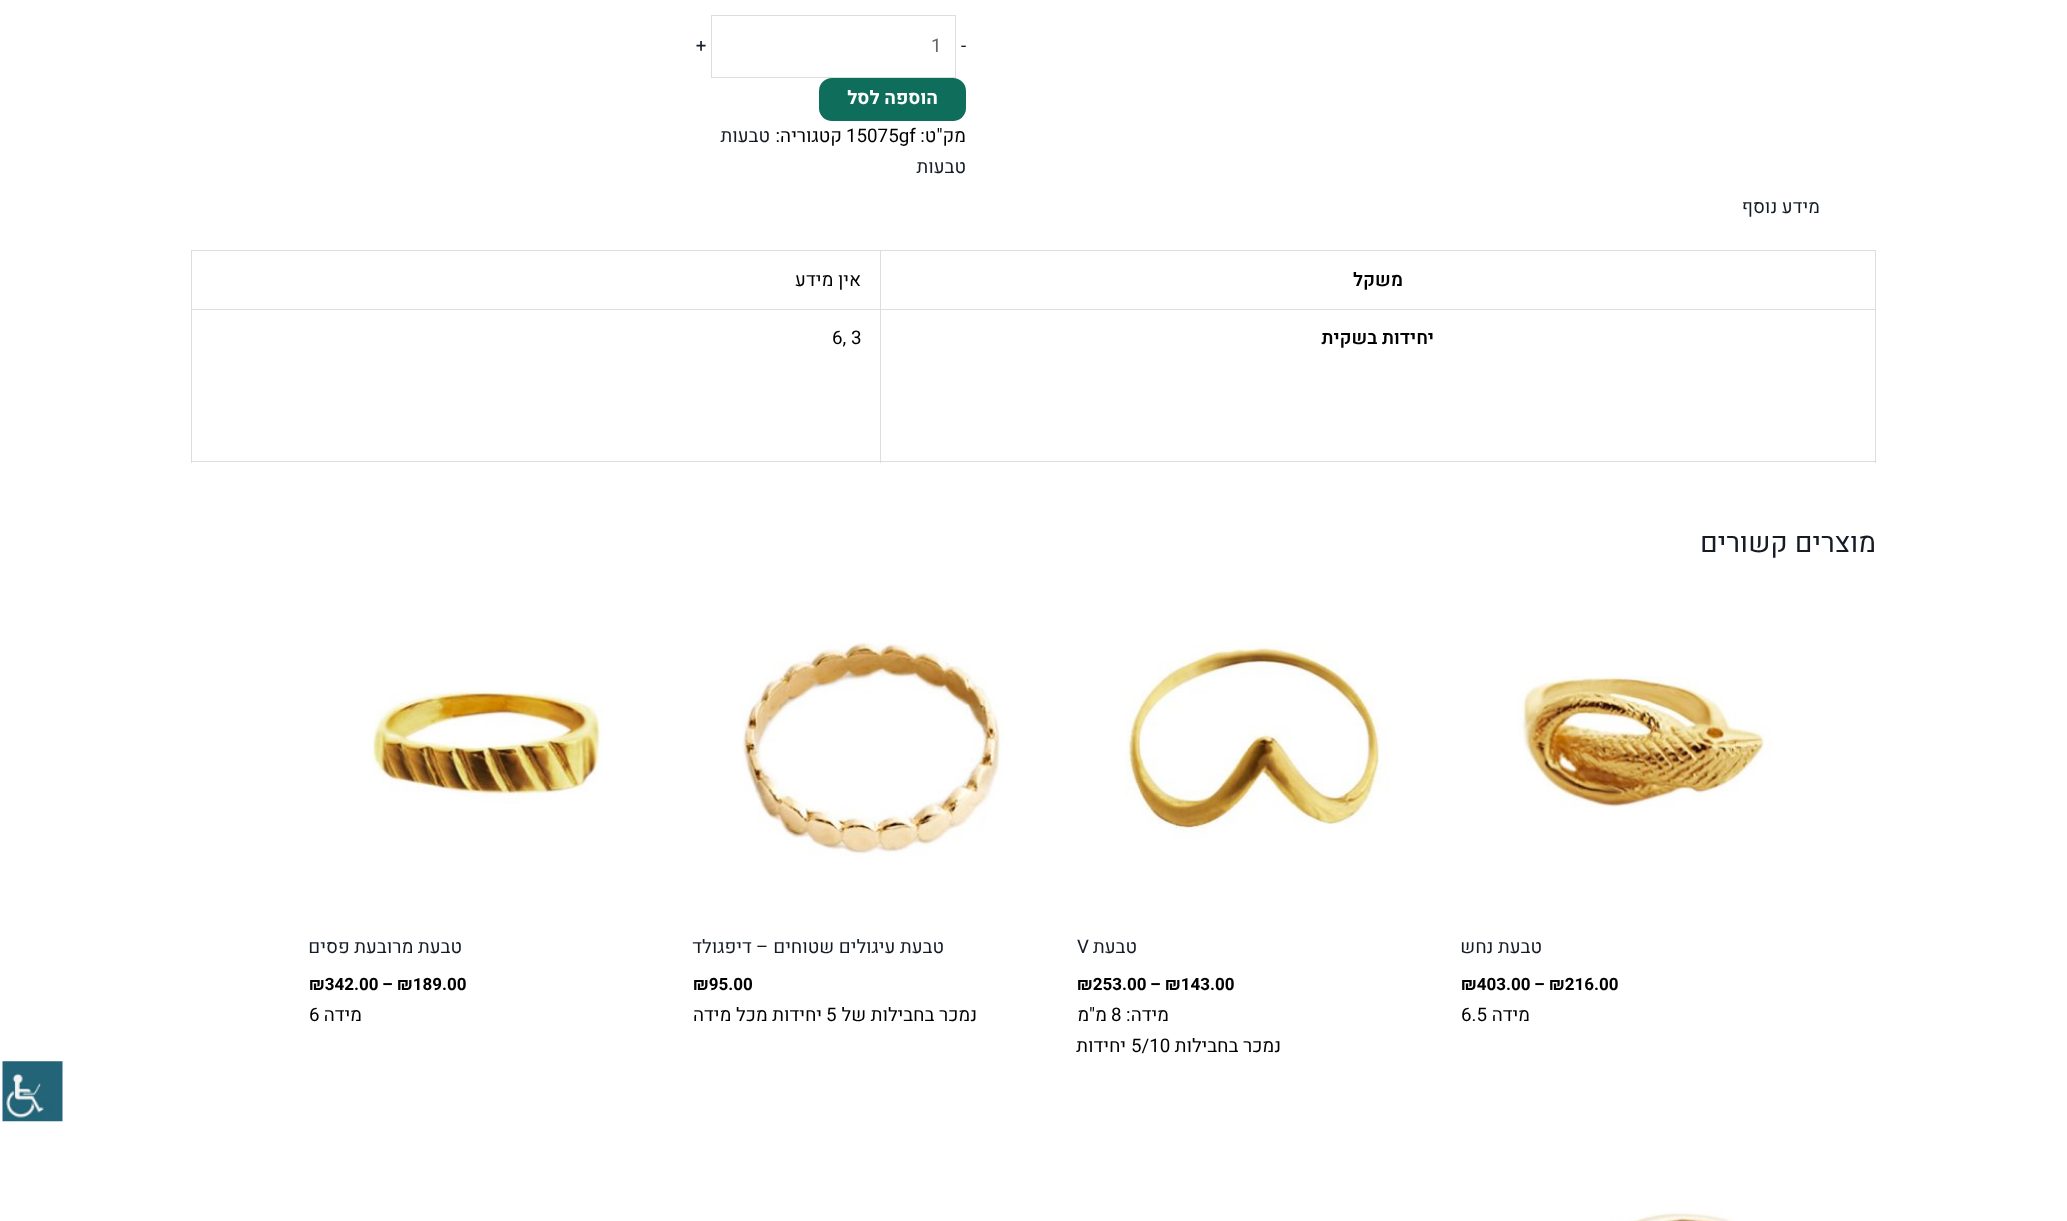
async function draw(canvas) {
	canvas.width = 2067;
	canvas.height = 1221;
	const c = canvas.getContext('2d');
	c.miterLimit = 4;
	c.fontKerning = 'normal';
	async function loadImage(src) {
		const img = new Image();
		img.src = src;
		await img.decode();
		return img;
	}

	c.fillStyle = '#fff';
	c.fillRect(0, 0, 2067, 1221);
	c.font = '18.75px Heebo';
	c.fillStyle = '#151c26';
	c.fillText('-', 961, 52);
	c.strokeStyle = '#ddd';
	c.strokeRect(711.5, 15.5, 244, 62);
	c.fillStyle = '#666';
	c.fillText('1', 931, 52);
	c.fillStyle = '#151c26';
	c.fillText('+', 696, 52);
	c.fillStyle = '#0f6d5b';
	c.beginPath();
	c.roundRect(819, 78, 147, 43, 13);
	c.fill();
	c.direction = 'rtl';
	c.font = 'bold 18.75px Heebo';
	c.fillStyle = '#fff';
	c.fillText('הוספה לסל', 938, 104);
	c.font = '18.75px Heebo';
	c.fillStyle = '#000';
	c.fillText('מק"ט:', 966, 142);
	c.direction = 'ltr';
	c.fillText('15075gf', 846, 142);
	c.direction = 'rtl';
	c.fillText('קטגוריה:', 842, 142);
	c.fillStyle = '#151c26';
	for (const [text, x, y] of [
		['טבעות', 770, 142],
		['טבעות', 966, 173],
		['מידע נוסף', 1820, 213],
	]) {
		c.fillText(text, x, y);
	}
	for (const [x, y, w, h, color] of [
		[191, 250, 1685, 1, '#ddd'],
		[1875, 250, 1, 213, '#ddd'],
		[191, 309, 1684, 1, '#ddd'],
		[880, 251, 1, 59, '#ddd'],
	]) {
		c.fillStyle = color;
		c.fillRect(x, y, w, h);
	}
	c.font = '600 18.75px Heebo';
	c.fillStyle = '#000';
	c.fillText('משקל', 1403, 286);
	c.fillStyle = '#ddd';
	c.fillRect(191, 251, 1, 59);
	c.font = '18.75px Heebo';
	c.fillStyle = '#000';
	c.fillText('אין מידע', 861, 286);
	c.fillStyle = '#ddd';
	c.fillRect(191, 461, 1684, 1);
	c.fillRect(880, 310, 1, 153);
	c.font = '600 18.75px Heebo';
	c.fillStyle = '#000';
	c.fillText('יחידות בשקית', 1434, 344);
	c.fillStyle = '#ddd';
	c.fillRect(191, 310, 1, 153);
	c.direction = 'ltr';
	c.font = '18.75px Heebo';
	c.fillStyle = '#000';
	c.fillText('6, 3', 832, 344);
	c.direction = 'rtl';
	c.font = '28px Heebo';
	c.fillStyle = '#151c26';
	c.fillText('מוצרים קשורים', 1876, 552);
	c.drawImage(await loadImage('img1.png'), 1517, 676, 256, 132);
	c.font = '18.75px Heebo';
	c.fillText('טבעת נחש', 1542, 953);
	c.direction = 'ltr';
	c.font = 'bold 17px Heebo';
	c.fillStyle = '#000';
	for (const [text, x, y] of [
		['₪216.00', 1549, 990],
		['–', 1534, 990],
		['₪403.00', 1461, 990],
	]) {
		c.fillText(text, x, y);
	}
	c.direction = 'rtl';
	c.font = '18.75px Heebo';
	c.fillText('מידה', 1530, 1021);
	c.direction = 'ltr';
	c.fillText('6.5', 1461, 1021);
	c.drawImage(await loadImage('img2.png'), 1125, 643, 264, 196);
	c.direction = 'rtl';
	c.fillStyle = '#151c26';
	c.fillText('טבעת', 1137, 953);
	c.direction = 'ltr';
	c.fillText('V', 1077, 953);
	c.font = 'bold 17px Heebo';
	c.fillStyle = '#000';
	for (const [text, x, y] of [
		['₪143.00', 1165, 990],
		['–', 1150, 990],
		['₪253.00', 1077, 990],
	]) {
		c.fillText(text, x, y);
	}
	c.direction = 'rtl';
	c.font = '18.75px Heebo';
	c.fillText('מידה:', 1169, 1021);
	c.direction = 'ltr';
	c.fillText('8', 1111, 1021);
	c.direction = 'rtl';
	c.fillText('מ"מ', 1107, 1021);
	c.fillText('נמכר בחבילות', 1281, 1052);
	c.direction = 'ltr';
	c.fillText('5/10', 1131, 1052);
	c.direction = 'rtl';
	c.fillText('יחידות', 1126, 1052);
	c.drawImage(await loadImage('img3.png'), 742, 642, 262, 215);
	c.fillStyle = '#151c26';
	c.fillText('טבעת עיגולים שטוחים – דיפגולד', 944, 953);
	c.direction = 'ltr';
	c.font = 'bold 17px Heebo';
	c.fillStyle = '#000';
	c.fillText('₪95.00', 693, 990);
	c.direction = 'rtl';
	c.font = '18.75px Heebo';
	c.fillText('נמכר בחבילות של', 977, 1021);
	c.direction = 'ltr';
	c.fillText('5', 826, 1021);
	c.direction = 'rtl';
	c.fillText('יחידות מכל מידה', 822, 1021);
	c.drawImage(await loadImage('img4.png'), 370, 689, 234, 115);
	c.fillStyle = '#151c26';
	c.fillText('טבעת מרובעת פסים', 462, 953);
	c.direction = 'ltr';
	c.font = 'bold 17px Heebo';
	c.fillStyle = '#000';
	for (const [text, x, y] of [
		['₪189.00', 397, 990],
		['–', 382, 990],
		['₪342.00', 309, 990],
	]) {
		c.fillText(text, x, y);
	}
	c.direction = 'rtl';
	c.font = '18.75px Heebo';
	c.fillText('מידה', 362, 1021);
	c.direction = 'ltr';
	c.fillText('6', 309, 1021);
	c.drawImage(await loadImage('img5.png'), 1610, 1211, 124, 10);
	c.drawImage(await loadImage('img6.png'), 2, 1061, 61, 61);
}

draw(document.querySelector('canvas'));
